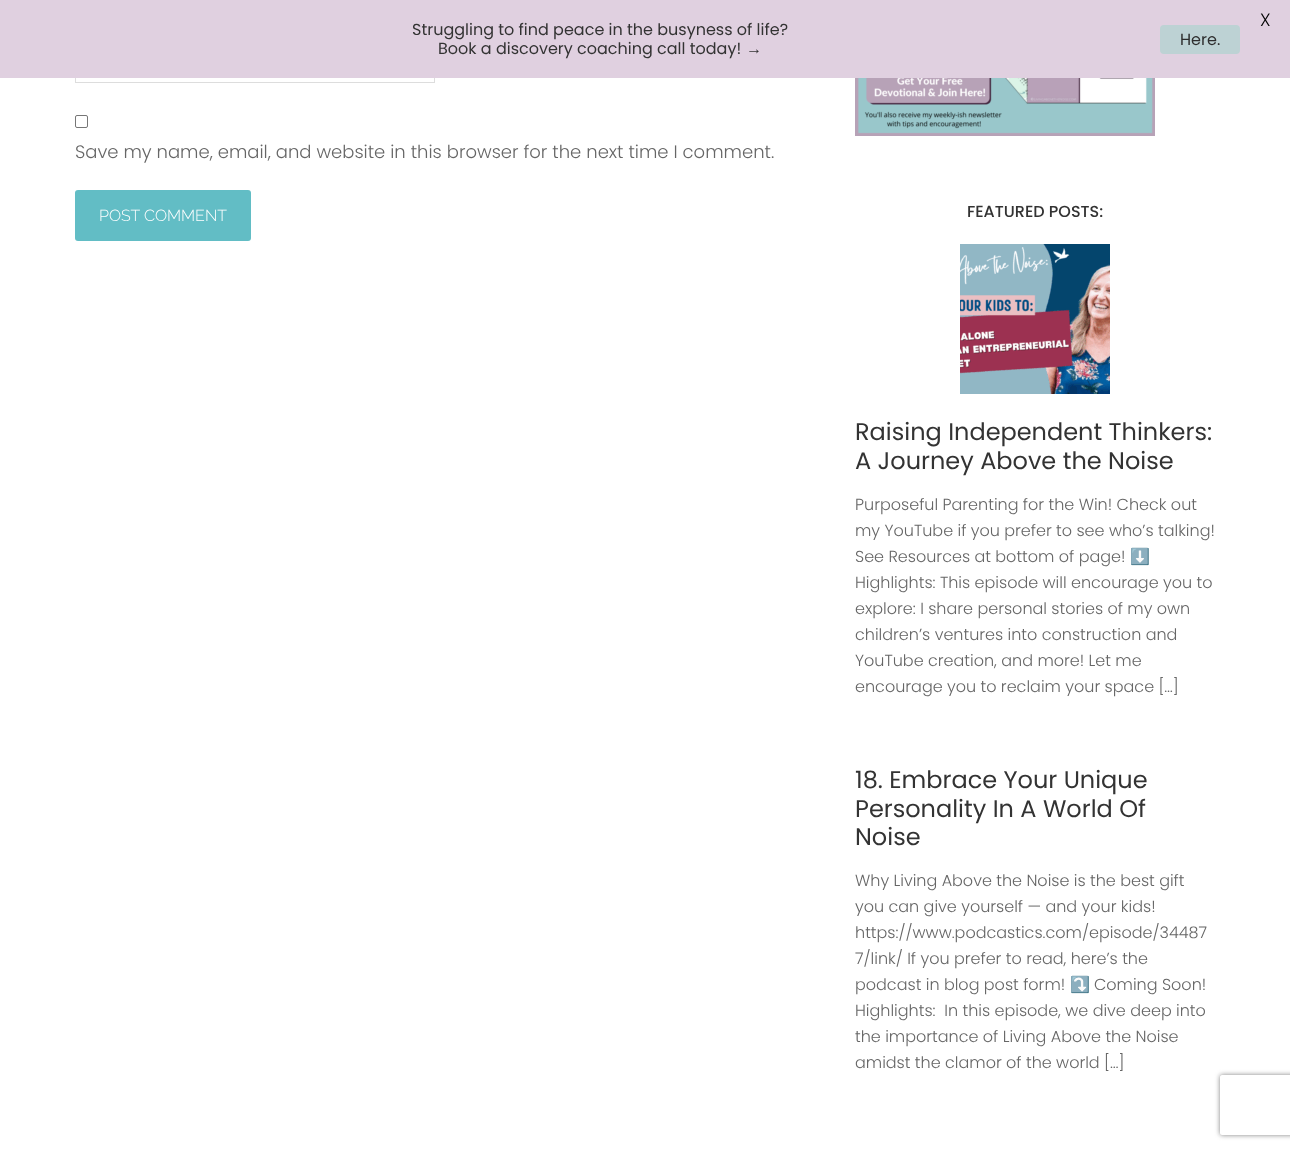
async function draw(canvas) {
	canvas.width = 1290;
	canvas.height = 1149;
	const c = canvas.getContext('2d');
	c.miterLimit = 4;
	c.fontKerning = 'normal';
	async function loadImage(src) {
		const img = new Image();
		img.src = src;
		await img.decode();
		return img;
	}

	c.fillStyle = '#fff';
	c.fillRect(0, 0, 1290, 1149);
	c.strokeStyle = '#ddd';
	c.strokeRect(75.5, 22.5, 359, 60);
	c.fillStyle = '#e0d0e0';
	c.fillRect(0, 0, 1290, 78);
	c.font = '300 18px Poppins';
	c.fillStyle = '#000';
	c.fillText('X', 1260, 26);
	c.font = '16px Poppins';
	c.fillStyle = '#333';
	c.fillText('Struggling to find peace in the busyness of life?', 412, 35);
	c.fillText('Book a discovery coaching call today!', 438, 54);
	c.font = '16px Liberation Serif';
	c.fillText('→', 746, 54);
	c.fillStyle = '#bdd2d4';
	c.beginPath();
	c.roundRect(1160, 25, 80, 29, 4);
	c.fill();
	c.font = '16px Poppins';
	c.fillStyle = '#2d2d2d';
	c.fillText('Here.', 1180, 45);
	c.beginPath();
	c.roundRect(75.5, 115.5, 12, 12, 1.5);
	c.strokeStyle = '#767676';
	c.stroke();
	c.font = '300 18px Poppins';
	c.fillStyle = '#666';
	c.fillText('Save my name, email, and website in this browser for the next time I comment.', 75, 158);
	c.fillStyle = '#62bdc5';
	c.beginPath();
	c.roundRect(75, 190, 176, 51, 3);
	c.fill();
	c.font = '300 16px Raleway';
	c.fillStyle = '#fff';
	c.fillText('POST COMMENT', 99, 221);
	c.drawImage(await loadImage('img1.png'), 855, 78, 300, 58);
	c.font = '500 16px Poppins';
	c.fillStyle = '#333';
	c.fillText('FEATURED POSTS:', 967, 217);
	c.drawImage(await loadImage('img2.png'), 960, 244, 150, 150);
	c.font = '24px Poppins';
	c.fillText('Raising Independent Thinkers:', 855, 440);
	c.fillText('A Journey Above the Noise', 855, 469);
	c.font = '300 16px Poppins';
	c.fillStyle = '#666';
	for (const [text, x, y] of [
		['Purposeful Parenting for the Win! Check out', 855, 510],
		['my YouTube if you prefer to see who’s talking!', 855, 536],
		['See Resources at bottom of page!', 855, 562],
	]) {
		c.fillText(text, x, y);
	}
	c.font = '16px Noto Color Emoji';
	c.fillText('⬇️', 1130, 562);
	c.font = '300 16px Poppins';
	for (const [text, x, y] of [
		['Highlights: This episode will encourage you to', 855, 588],
		['explore: I share personal stories of my own', 855, 614],
		['children’s ventures into construction and', 855, 640],
		['YouTube creation, and more! Let me', 855, 666],
		['encourage you to reclaim your space […]', 855, 692],
	]) {
		c.fillText(text, x, y);
	}
	c.font = '24px Poppins';
	c.fillStyle = '#333';
	for (const [text, x, y] of [
		['18. Embrace Your Unique', 855, 788],
		['Personality In A World Of', 855, 817],
		['Noise', 855, 845],
	]) {
		c.fillText(text, x, y);
	}
	c.font = '300 16px Poppins';
	c.fillStyle = '#666';
	for (const [text, x, y] of [
		['Why Living Above the Noise is the best gift', 855, 886],
		['you can give yourself — and your kids!', 855, 912],
		['https://www.podcastics.com/episode/34487', 855, 938],
		['7/link/ If you prefer to read, here’s the', 855, 964],
		['podcast in blog post form!', 855, 990],
	]) {
		c.fillText(text, x, y);
	}
	c.font = '16px Noto Color Emoji';
	c.fillText('⤵️', 1070, 990);
	c.font = '300 16px Poppins';
	for (const [text, x, y] of [
		['Coming Soon!', 1094, 990],
		['Highlights:  In this episode, we dive deep into', 855, 1016],
		['the importance of Living Above the Noise', 855, 1042],
		['amidst the clamor of the world […]', 855, 1068],
	]) {
		c.fillText(text, x, y);
	}
	c.save();
	c.beginPath();
	c.moveTo(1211, 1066);
	c.lineTo(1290, 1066);
	c.lineTo(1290, 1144);
	c.lineTo(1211, 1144);
	c.closePath();
	c.moveTo(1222, 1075);
	c.lineTo(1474, 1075);
	c.bezierCurveTo(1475, 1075, 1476, 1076, 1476, 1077);
	c.lineTo(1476, 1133);
	c.bezierCurveTo(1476, 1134, 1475, 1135, 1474, 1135);
	c.lineTo(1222, 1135);
	c.bezierCurveTo(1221, 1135, 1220, 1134, 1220, 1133);
	c.lineTo(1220, 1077);
	c.bezierCurveTo(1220, 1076, 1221, 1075, 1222, 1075);
	c.closePath();
	c.clip('evenodd');
	c.fillStyle = '#808080';
	c.filter = 'blur(2.5px)';
	c.beginPath();
	c.roundRect(1220, 1075, 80, 60, 2);
	c.fill();
	c.filter = 'none';
	c.restore();
}

draw(document.querySelector('canvas'));
